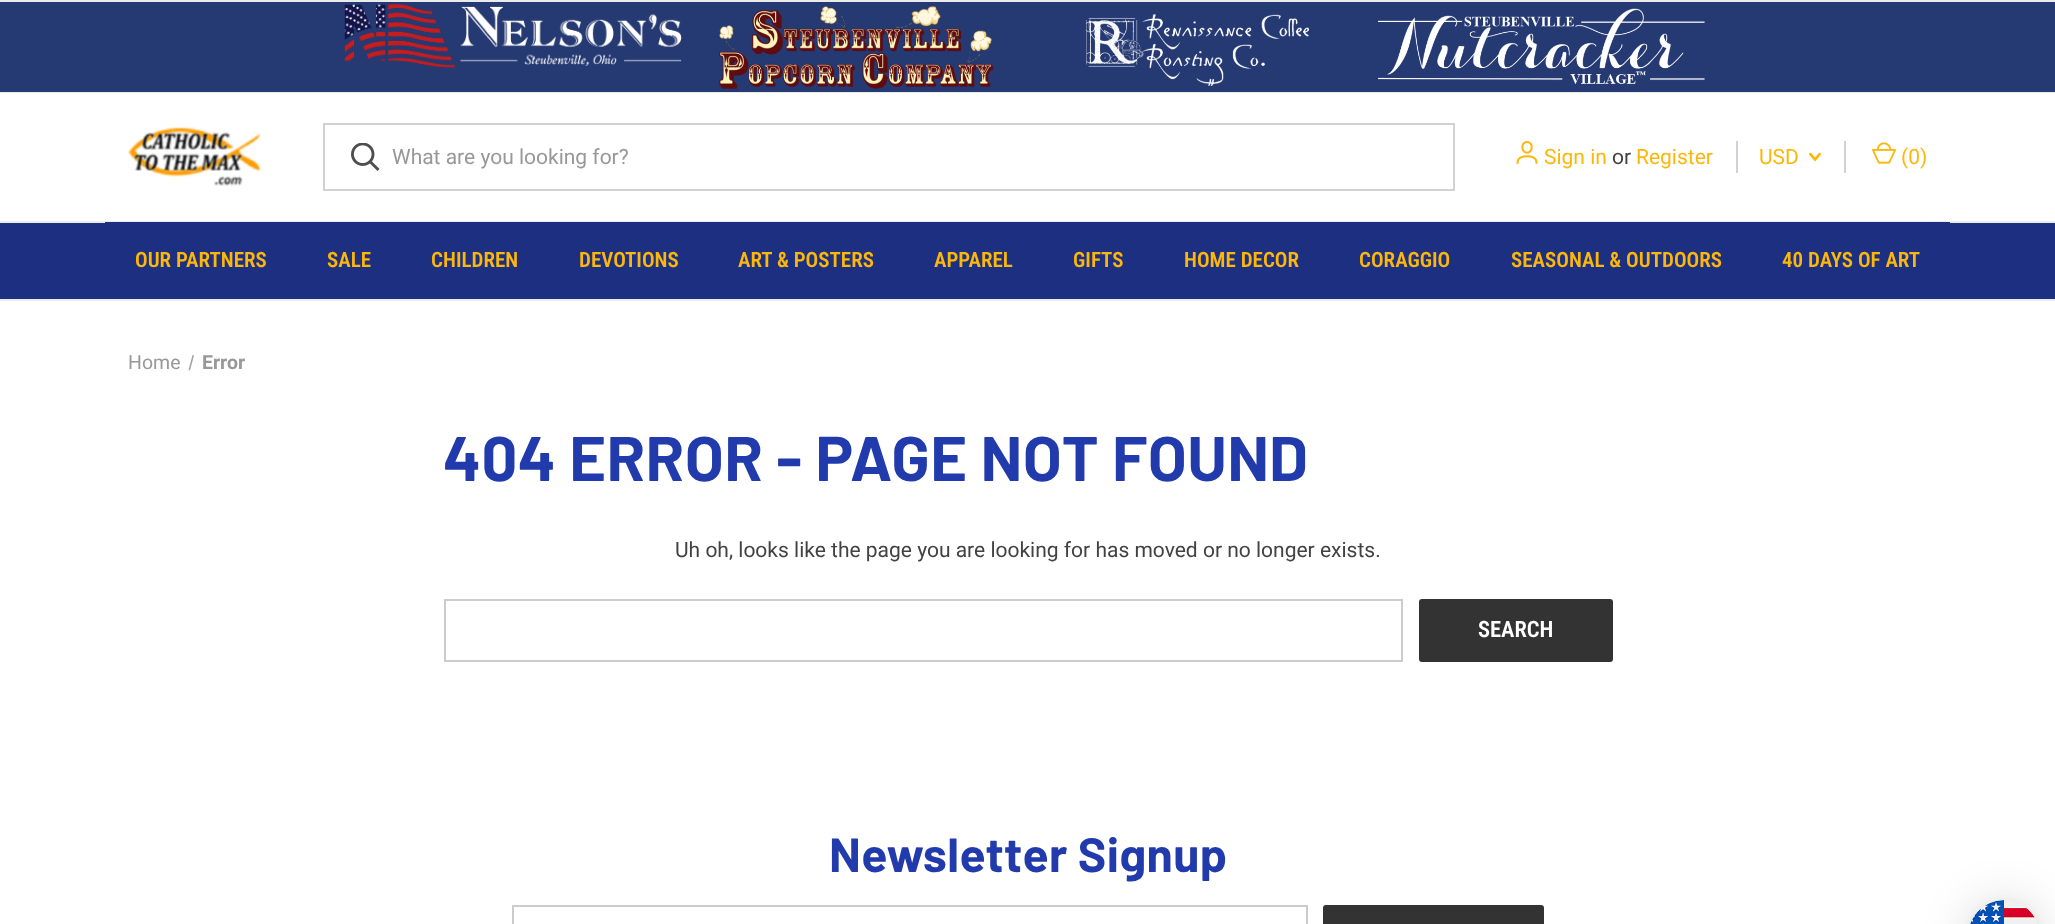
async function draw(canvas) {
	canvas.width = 2055;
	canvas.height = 924;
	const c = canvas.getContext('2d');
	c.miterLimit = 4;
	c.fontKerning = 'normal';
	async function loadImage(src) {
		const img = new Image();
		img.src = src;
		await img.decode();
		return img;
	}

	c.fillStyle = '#fff';
	c.fillRect(0, 0, 2055, 924);
	for (const [x, y, w, h, color] of [
		[0, 0, 2055, 2, '#ebebeb'],
		[0, 92, 2055, 1, '#ebebeb'],
		[0, 2, 2055, 90, '#253972'],
	]) {
		c.fillStyle = color;
		c.fillRect(x, y, w, h);
	}
	c.drawImage(await loadImage('img1.png'), 344, 4, 338, 64);
	c.drawImage(await loadImage('img2.png'), 719, 6, 275, 83);
	c.drawImage(await loadImage('img3.png'), 1085, 13, 224, 73);
	c.drawImage(await loadImage('img4.png'), 1378, 8, 327, 76);
	c.drawImage(await loadImage('img5.png'), 128, 127, 134, 59);
	c.strokeStyle = '#d2d2d2';
	c.lineWidth = 2;
	c.strokeRect(324, 124, 1130, 66);
	c.drawImage(await loadImage('img6.png'), 351, 143, 29, 28);
	c.font = '21px Roboto';
	c.fillStyle = '#989898';
	c.fillText('What are you looking for?', 392, 164);
	c.drawImage(await loadImage('img7.png'), 1516, 141, 22, 23);
	c.fillStyle = '#fcb70a';
	c.fillText('Sign in', 1544, 164);
	c.fillStyle = '#424242';
	c.fillText('or', 1612, 164);
	c.fillStyle = '#fcb70a';
	c.fillText('Register', 1636, 164);
	c.fillStyle = '#d2d2d2';
	c.fillRect(1736, 141, 2, 32);
	c.fillStyle = '#fcb70a';
	c.fillText('USD', 1759, 164);
	c.drawImage(await loadImage('img8.png'), 1809, 152, 12, 10);
	c.fillStyle = '#d2d2d2';
	c.fillRect(1844, 141, 2, 32);
	c.drawImage(await loadImage('img9.png'), 1872, 142, 24, 22);
	c.fillStyle = '#fcb70a';
	c.fillText('(0)', 1901, 164);
	for (const [x, y, w, h, color] of [
		[0, 223, 2055, 76, '#1d2f81'],
		[0, 221, 2055, 2, '#ebebeb'],
		[0, 299, 2055, 2, '#ebebeb'],
		[105, 222, 1845, 1, '#1d2f81'],
	]) {
		c.fillStyle = color;
		c.fillRect(x, y, w, h);
	}
	c.font = '600 21px Roboto Condensed';
	c.fillStyle = '#fcb70a';
	for (const [text, x, y] of [
		['OUR PARTNERS', 135, 267],
		['SALE', 327, 267],
		['CHILDREN', 431, 267],
		['DEVOTIONS', 579, 267],
		['ART & POSTERS', 738, 267],
		['APPAREL', 934, 267],
		['GIFTS', 1073, 267],
		['HOME DECOR', 1184, 267],
		['CORAGGIO', 1359, 267],
		['SEASONAL & OUTDOORS', 1511, 267],
		['40 DAYS OF ART', 1782, 267],
	]) {
		c.fillText(text, x, y);
	}
	c.font = '19.5px Roboto';
	c.fillStyle = '#989898';
	c.fillText('Home', 128, 369);
	c.fillStyle = '#a3a3a3';
	c.beginPath();
	c.moveTo(192.5, 355);
	c.lineTo(194, 355.5);
	c.lineTo(190, 370.5);
	c.lineTo(188.5, 370);
	c.closePath();
	c.fill();
	c.font = 'bold 19.5px Roboto';
	c.fillStyle = '#989898';
	c.fillText('Error', 202, 369);
	c.letterSpacing = '0.4px';
	c.font = 'bold 63px Barlow';
	c.fillStyle = '#223bac';
	c.fillText('404 ERROR - PAGE NOT FOUND', 443, 481);
	c.letterSpacing = '0px';
	c.font = '21px Roboto';
	c.fillStyle = '#424242';
	c.fillText('Uh oh, looks like the page you are looking for has moved or no longer exists.', 675, 557);
	c.strokeStyle = '#ccc';
	c.strokeRect(445, 600, 957, 61);
	c.fillStyle = '#333';
	c.beginPath();
	c.roundRect(1419, 599, 194, 63, 3);
	c.fill();
	c.font = '600 22.5px Roboto Condensed';
	c.fillStyle = '#fff';
	c.fillText('SEARCH', 1478, 637);
	c.letterSpacing = '0.4px';
	c.font = 'bold 48px Barlow';
	c.fillStyle = '#223bac';
	c.fillText('Newsletter Signup', 829, 872);
	c.strokeRect(513, 906, 794, 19);
	c.fillStyle = '#333';
	c.beginPath();
	c.roundRect(1323, 905, 221, 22, 3);
	c.fill();
	c.fillStyle = '#00000029';
	c.filter = 'blur(24px)';
	c.beginPath();
	c.roundRect(1968, 903, 72, 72, 36);
	c.fill();
	c.filter = 'none';
	c.fillStyle = '#0000000f';
	c.filter = 'blur(4.5px)';
	c.beginPath();
	c.roundRect(1968, 902, 72, 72, 36);
	c.fill();
	c.filter = 'none';
	c.drawImage(await loadImage('img10.png'), 1970, 900, 68, 24);
}

draw(document.querySelector('canvas'));
